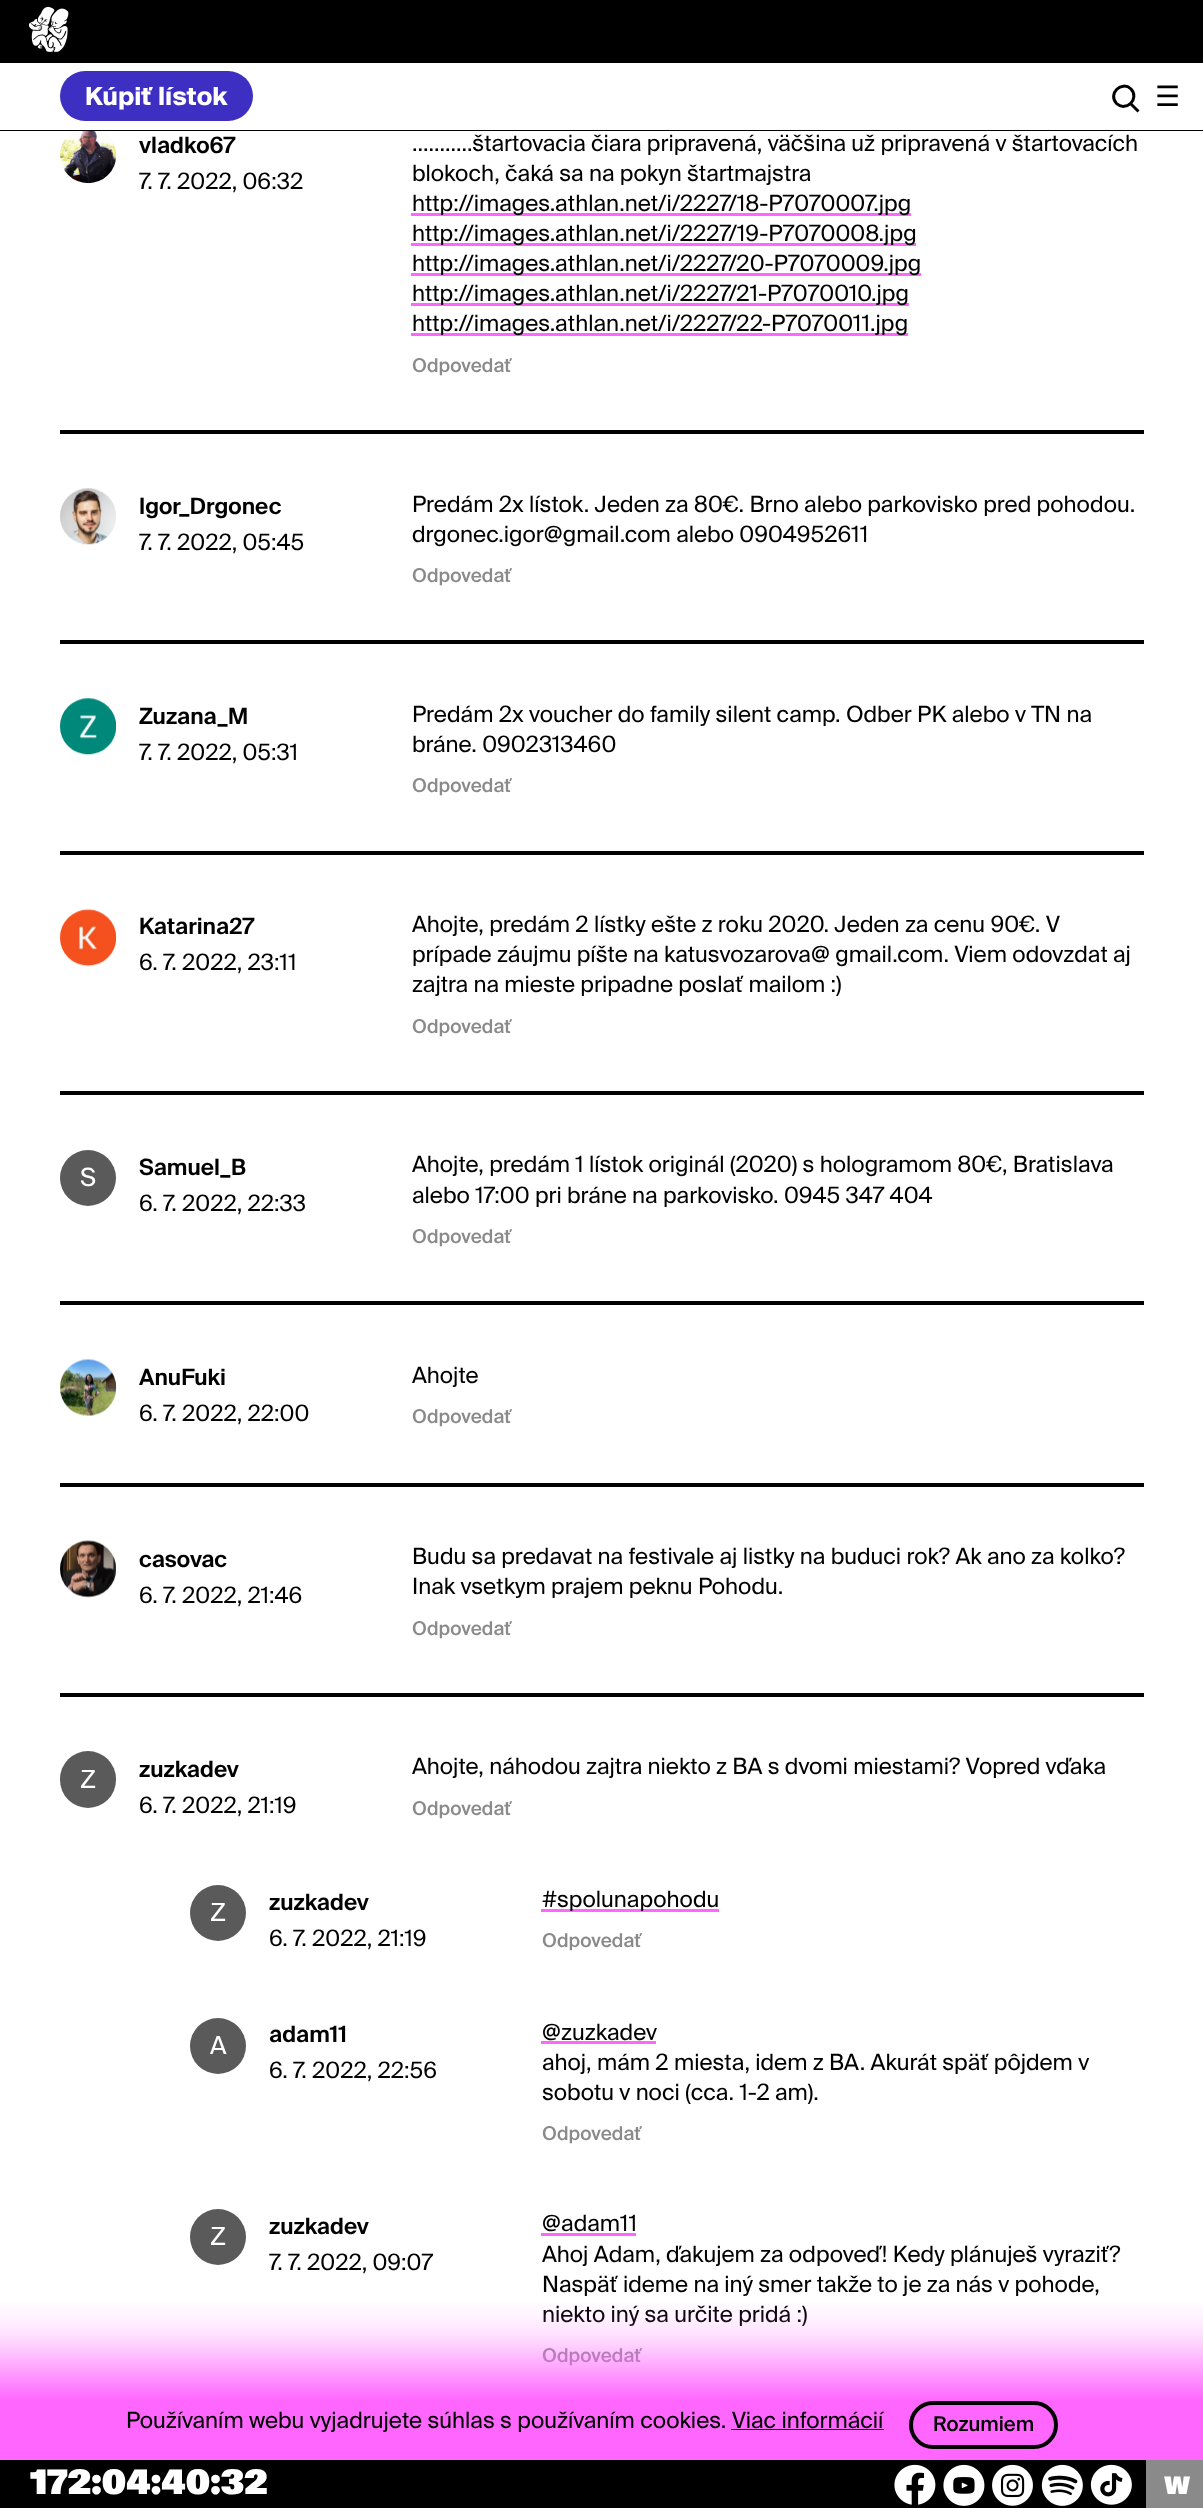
async function draw(canvas) {
	canvas.width = 1203;
	canvas.height = 2508;
	const c = canvas.getContext('2d');
	c.miterLimit = 4;
	c.fontKerning = 'normal';
	async function loadImage(src) {
		const img = new Image();
		img.src = src;
		await img.decode();
		return img;
	}
	let gradient;

	c.fillStyle = '#fff';
	c.fillRect(0, 0, 1203, 2508);
	c.fillStyle = '#000';
	c.fillRect(0, 0, 1203, 63);
	c.drawImage(await loadImage('img1.png'), 29, 6, 40, 46);
	c.fillRect(0, 130, 1203, 1);
	c.fillStyle = '#3d2fc1';
	c.beginPath();
	c.roundRect(60, 71, 193, 50, 25);
	c.fill();
	c.font = 'bold 25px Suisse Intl';
	c.fillStyle = '#fff';
	c.fillText('Kúpiť lístok', 85, 105);
	c.beginPath();
	c.moveTo(1131, 89);
	c.bezierCurveTo(1140, 98.5, 1126, 112.5, 1116.5, 103.5);
	c.bezierCurveTo(1107.5, 94, 1121.5, 80, 1131, 89);
	c.closePath();
	c.moveTo(1130.5, 103.5);
	c.lineTo(1138.5, 111.5);
	c.strokeStyle = '#000';
	c.lineWidth = 3;
	c.stroke();
	c.font = '28px DejaVu Sans';
	c.fillStyle = '#000';
	c.fillText('☰', 1155, 106);
	c.fillRect(60, 430, 1084, 4);
	c.drawImage(await loadImage('img2.png'), 60, 131, 57, 53);
	c.font = '600 22.5px Suisse Intl';
	c.fillText('vladko67', 139, 153);
	c.font = '22.5px Suisse Intl';
	for (const [text, x, y] of [
		['7. 7. 2022, 06:32', 139, 189],
		['...........štartovacia čiara pripravená, väčšina už pripravená v štartovacích', 412, 151],
		['blokoch, čaká sa na pokyn štartmajstra', 412, 181],
	]) {
		c.fillText(text, x, y);
	}
	c.fillStyle = '#f6f';
	c.fillRect(411, 213, 500, 3);
	c.fillStyle = '#000';
	c.fillText('http://images.athlan.net/i/2227/18-P7070007.jpg', 412, 211);
	c.fillStyle = '#f6f';
	c.fillRect(411, 243, 505, 3);
	c.fillStyle = '#000';
	c.fillText('http://images.athlan.net/i/2227/19-P7070008.jpg', 412, 241);
	c.fillStyle = '#f6f';
	c.fillRect(411, 273, 510, 3);
	c.fillStyle = '#000';
	c.fillText('http://images.athlan.net/i/2227/20-P7070009.jpg', 412, 271);
	c.fillStyle = '#f6f';
	c.fillRect(411, 303, 498, 3);
	c.fillStyle = '#000';
	c.fillText('http://images.athlan.net/i/2227/21-P7070010.jpg', 412, 301);
	c.fillStyle = '#f6f';
	c.fillRect(411, 333, 497, 3);
	c.fillStyle = '#000';
	c.fillText('http://images.athlan.net/i/2227/22-P7070011.jpg', 412, 331);
	c.font = '500 19px Suisse Intl';
	c.fillStyle = '#8a8a8a';
	c.fillText('Odpovedať', 412, 372);
	c.fillStyle = '#000';
	c.fillRect(60, 640, 1084, 4);
	c.drawImage(await loadImage('img3.png'), 60, 488, 56, 57);
	c.font = '600 22.5px Suisse Intl';
	c.fillText('Igor_Drgonec', 139, 514);
	c.font = '22.5px Suisse Intl';
	for (const [text, x, y] of [
		['7. 7. 2022, 05:45', 139, 550],
		['Predám 2x lístok. Jeden za 80€. Brno alebo parkovisko pred pohodou.', 412, 512],
		['drgonec.igor@gmail.com alebo 0904952611', 412, 542],
	]) {
		c.fillText(text, x, y);
	}
	c.font = '500 19px Suisse Intl';
	c.fillStyle = '#8a8a8a';
	c.fillText('Odpovedať', 412, 582);
	c.fillStyle = '#000';
	c.fillRect(60, 851, 1084, 4);
	c.drawImage(await loadImage('img4.png'), 60, 698, 57, 57);
	c.font = '600 22.5px Suisse Intl';
	c.fillText('Zuzana_M', 139, 724);
	c.font = '22.5px Suisse Intl';
	for (const [text, x, y] of [
		['7. 7. 2022, 05:31', 139, 760],
		['Predám 2x voucher do family silent camp. Odber PK alebo v TN na', 412, 722],
		['bráne. 0902313460', 412, 752],
	]) {
		c.fillText(text, x, y);
	}
	c.font = '500 19px Suisse Intl';
	c.fillStyle = '#8a8a8a';
	c.fillText('Odpovedať', 412, 792);
	c.fillStyle = '#000';
	c.fillRect(60, 1091, 1084, 4);
	c.drawImage(await loadImage('img5.png'), 60, 909, 57, 58);
	c.font = '600 22.5px Suisse Intl';
	c.fillText('Katarina27', 139, 934);
	c.font = '22.5px Suisse Intl';
	for (const [text, x, y] of [
		['6. 7. 2022, 23:11', 139, 970],
		['Ahojte, predám 2 lístky ešte z roku 2020. Jeden za cenu 90€. V', 412, 932],
		['prípade záujmu píšte na katusvozarova@ gmail.com. Viem odovzdat aj', 412, 962],
		['zajtra na mieste pripadne poslať mailom :)', 412, 992],
	]) {
		c.fillText(text, x, y);
	}
	c.font = '500 19px Suisse Intl';
	c.fillStyle = '#8a8a8a';
	c.fillText('Odpovedať', 412, 1033);
	c.fillStyle = '#000';
	c.fillRect(60, 1301, 1084, 4);
	c.fillStyle = '#5a5a5a';
	c.beginPath();
	c.arc(88, 1178, 28, 0, 2 * Math.PI);
	c.fill();
	c.font = '25px Suisse Intl';
	c.fillStyle = '#fff';
	c.fillText('S', 80, 1186);
	c.font = '600 22.5px Suisse Intl';
	c.fillStyle = '#000';
	c.fillText('Samuel_B', 139, 1175);
	c.font = '22.5px Suisse Intl';
	for (const [text, x, y] of [
		['6. 7. 2022, 22:33', 139, 1211],
		['Ahojte, predám 1 lístok originál (2020) s hologramom 80€, Bratislava', 412, 1172],
		['alebo 17:00 pri bráne na parkovisko. 0945 347 404', 412, 1203],
	]) {
		c.fillText(text, x, y);
	}
	c.font = '500 19px Suisse Intl';
	c.fillStyle = '#8a8a8a';
	c.fillText('Odpovedať', 412, 1243);
	c.fillStyle = '#000';
	c.fillRect(60, 1483, 1084, 4);
	c.drawImage(await loadImage('img6.png'), 60, 1359, 57, 57);
	c.font = '600 22.5px Suisse Intl';
	c.fillText('AnuFuki', 139, 1385);
	c.font = '22.5px Suisse Intl';
	c.fillText('6. 7. 2022, 22:00', 139, 1421);
	c.fillText('Ahojte', 412, 1383);
	c.font = '500 19px Suisse Intl';
	c.fillStyle = '#8a8a8a';
	c.fillText('Odpovedať', 412, 1423);
	c.fillStyle = '#000';
	c.fillRect(60, 1693, 1084, 4);
	c.drawImage(await loadImage('img7.png'), 60, 1540, 57, 58);
	c.font = '600 22.5px Suisse Intl';
	c.fillText('casovac', 139, 1567);
	c.font = '22.5px Suisse Intl';
	for (const [text, x, y] of [
		['6. 7. 2022, 21:46', 139, 1603],
		['Budu sa predavat na festivale aj listky na buduci rok? Ak ano za kolko?', 412, 1564],
		['Inak vsetkym prajem peknu Pohodu.', 412, 1594],
	]) {
		c.fillText(text, x, y);
	}
	c.font = '500 19px Suisse Intl';
	c.fillStyle = '#8a8a8a';
	c.fillText('Odpovedať', 412, 1635);
	c.fillStyle = '#5a5a5a';
	c.beginPath();
	c.roundRect(60, 1751, 56, 57, 28);
	c.fill();
	c.font = '25px Suisse Intl';
	c.fillStyle = '#fff';
	c.fillText('Z', 80, 1788);
	c.font = '600 22.5px Suisse Intl';
	c.fillStyle = '#000';
	c.fillText('zuzkadev', 139, 1777);
	c.font = '22.5px Suisse Intl';
	c.fillText('6. 7. 2022, 21:19', 139, 1813);
	c.fillText('Ahojte, náhodou zajtra niekto z BA s dvomi miestami? Vopred vďaka', 412, 1774);
	c.font = '500 19px Suisse Intl';
	c.fillStyle = '#8a8a8a';
	c.fillText('Odpovedať', 412, 1815);
	c.fillStyle = '#5a5a5a';
	c.beginPath();
	c.arc(218, 1913, 28, 0, 2 * Math.PI);
	c.fill();
	c.font = '25px Suisse Intl';
	c.fillStyle = '#fff';
	c.fillText('Z', 210, 1921);
	c.font = '600 22.5px Suisse Intl';
	c.fillStyle = '#000';
	c.fillText('zuzkadev', 269, 1910);
	c.font = '22.5px Suisse Intl';
	c.fillText('6. 7. 2022, 21:19', 269, 1946);
	c.fillStyle = '#f6f';
	c.fillRect(541, 1909, 178, 3);
	c.fillStyle = '#000';
	c.fillText('#spolunapohodu', 542, 1907);
	c.font = '500 19px Suisse Intl';
	c.fillStyle = '#8a8a8a';
	c.fillText('Odpovedať', 542, 1947);
	c.fillStyle = '#5a5a5a';
	c.beginPath();
	c.arc(218, 2046, 28, 0, 2 * Math.PI);
	c.fill();
	c.font = '25px Suisse Intl';
	c.fillStyle = '#fff';
	c.fillText('A', 210, 2054);
	c.font = '600 22.5px Suisse Intl';
	c.fillStyle = '#000';
	c.fillText('adam11', 269, 2042);
	c.font = '22.5px Suisse Intl';
	c.fillText('6. 7. 2022, 22:56', 269, 2078);
	c.fillText('@zuzkadev', 542, 2040);
	c.fillStyle = '#f6f';
	c.fillRect(541, 2041, 115, 3);
	c.fillStyle = '#000';
	c.fillText('ahoj, mám 2 miesta, idem z BA. Akurát späť pôjdem v', 542, 2070);
	c.fillText('sobotu v noci (cca. 1-2 am).', 542, 2100);
	c.font = '500 19px Suisse Intl';
	c.fillStyle = '#8a8a8a';
	c.fillText('Odpovedať', 542, 2140);
	c.fillStyle = '#5a5a5a';
	c.beginPath();
	c.arc(218, 2237, 28, 0, 2 * Math.PI);
	c.fill();
	c.font = '25px Suisse Intl';
	c.fillStyle = '#fff';
	c.fillText('Z', 210, 2245);
	c.font = '600 22.5px Suisse Intl';
	c.fillStyle = '#000';
	c.fillText('zuzkadev', 269, 2234);
	c.font = '22.5px Suisse Intl';
	c.fillText('7. 7. 2022, 09:07', 269, 2270);
	c.fillText('@adam11', 542, 2231);
	c.fillStyle = '#f6f';
	c.fillRect(541, 2233, 95, 3);
	c.fillStyle = '#000';
	for (const [text, x, y] of [
		['Ahoj Adam, ďakujem za odpoveď! Kedy plánuješ vyraziť?', 542, 2262],
		['Naspäť ideme na iný smer takže to je za nás v pohode,', 542, 2292],
		['niekto iný sa určite pridá :)', 542, 2322],
	]) {
		c.fillText(text, x, y);
	}
	c.font = '500 19px Suisse Intl';
	c.fillStyle = '#8a8a8a';
	c.fillText('Odpovedať', 542, 2362);
	c.fillStyle = '#fe66fe';
	c.fillRect(0, 2401, 1203, 59);
	gradient = c.createLinearGradient(602, 2401, 602, 2289);
	gradient.addColorStop(0, '#fe66fe');
	gradient.addColorStop(0.5, '#fe66fe4d');
	gradient.addColorStop(0.65, '#fe66fe26');
	gradient.addColorStop(0.76, '#fe66fe12');
	gradient.addColorStop(0.83, '#fe66fe0a');
	gradient.addColorStop(0.88, '#fe66fe05');
	gradient.addColorStop(1, '#fe66fe00');
	c.fillStyle = gradient;
	c.fillRect(0, 2303, 1203, 98);
	c.font = '22.5px Suisse Intl';
	c.fillStyle = '#000';
	c.fillText('Používaním webu vyjadrujete súhlas s používaním cookies. Viac informácií', 126, 2428);
	c.beginPath();
	c.roundRect(911, 2403, 145, 44, 22);
	c.lineWidth = 4;
	c.stroke();
	c.font = '500 20.25px Suisse Intl';
	c.fillText('Rozumiem', 933, 2431);
	c.fillRect(731, 2429, 153, 1);
	c.fillRect(0, 2460, 1146, 48);
	c.drawImage(await loadImage('img8.png'), 894, 2464, 42, 41);
	c.drawImage(await loadImage('img9.png'), 943, 2464, 42, 42);
	c.drawImage(await loadImage('img10.png'), 992, 2464, 41, 42);
	c.drawImage(await loadImage('img11.png'), 1041, 2464, 42, 42);
	c.drawImage(await loadImage('img12.png'), 1090, 2464, 42, 41);
	c.fillStyle = '#8a8a8a';
	c.fillRect(1146, 2460, 57, 48);
	c.font = '900 25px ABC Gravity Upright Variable';
	c.fillStyle = '#fff';
	c.fillText('W', 1164, 2494);
	c.font = '900 35px ABC Gravity Upright Variable';
	c.fillText('172:04:40:32', 30, 2494);
}

draw(document.querySelector('canvas'));
